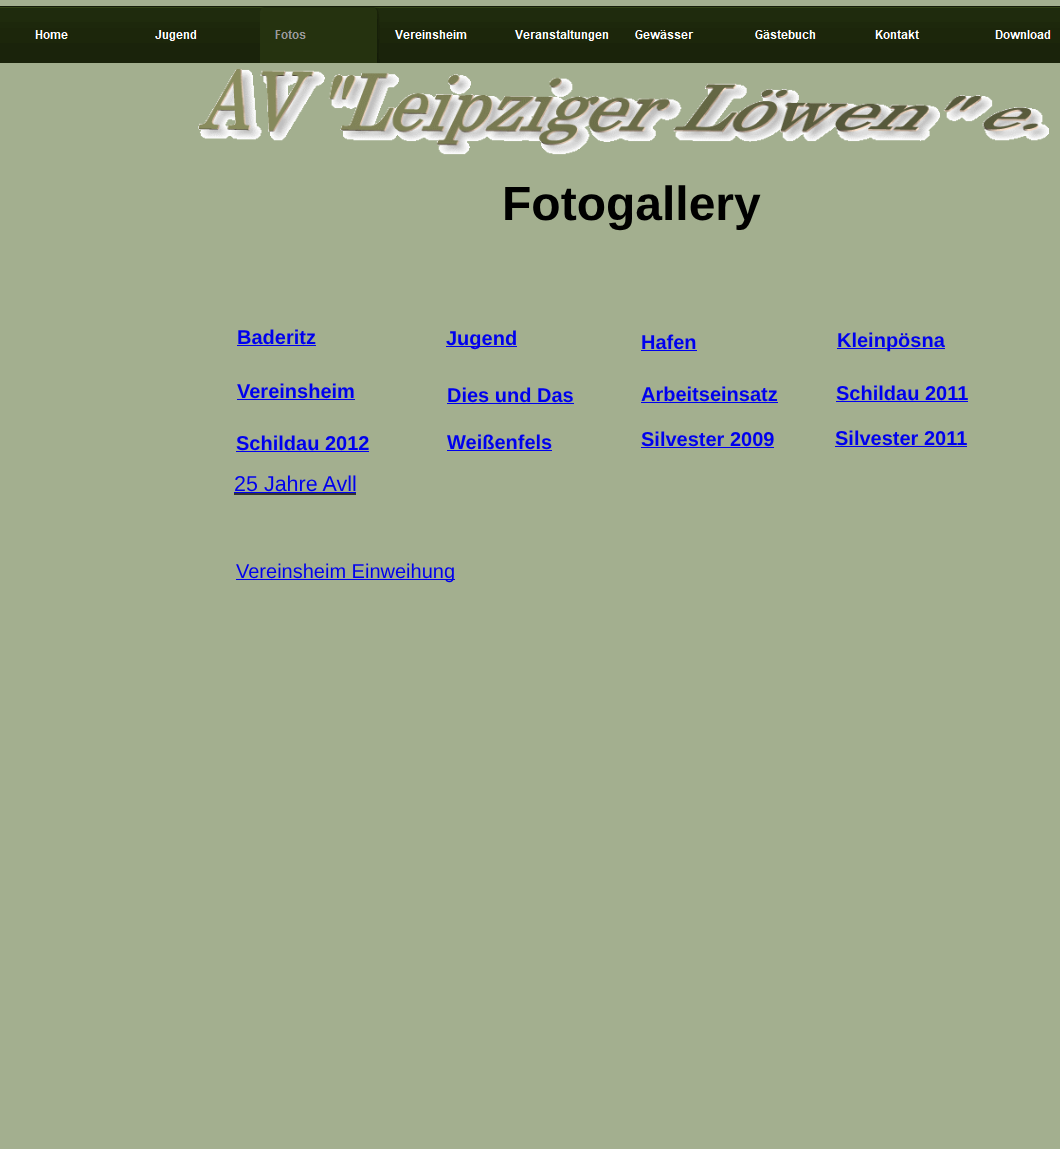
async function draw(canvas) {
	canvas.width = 1060;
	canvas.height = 1149;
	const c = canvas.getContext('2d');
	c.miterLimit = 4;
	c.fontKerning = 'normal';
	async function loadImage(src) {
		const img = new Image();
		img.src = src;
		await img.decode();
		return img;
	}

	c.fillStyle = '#a3af8f';
	c.fillRect(0, 0, 1060, 1149);
	c.drawImage(await loadImage('img1.png'), 0, 6, 20, 57);
	c.drawImage(await loadImage('img2.png'), 20, 6, 120, 57);
	c.drawImage(await loadImage('img3.png'), 140, 6, 120, 57);
	c.drawImage(await loadImage('img4.png'), 260, 6, 120, 57);
	c.drawImage(await loadImage('img5.png'), 380, 6, 120, 57);
	c.drawImage(await loadImage('img6.png'), 500, 6, 120, 57);
	c.drawImage(await loadImage('img7.png'), 620, 6, 120, 57);
	c.drawImage(await loadImage('img8.png'), 740, 6, 120, 57);
	c.drawImage(await loadImage('img9.png'), 860, 6, 120, 57);
	c.drawImage(await loadImage('img10.png'), 980, 6, 80, 57);
	c.drawImage(await loadImage('img11.png'), 198, 69, 851, 86);
	c.font = 'bold 48px Liberation Sans';
	c.fillStyle = '#000';
	c.fillText('Fotogallery', 502, 220);
	c.font = 'bold 20px Liberation Sans';
	c.fillStyle = '#00e';
	c.fillText('Baderitz', 237, 344);
	c.fillRect(237, 345, 79, 1);
	c.fillText('Vereinsheim', 237, 398);
	c.fillRect(237, 399, 118, 1);
	c.fillText('Schildau 2012', 236, 450);
	c.fillRect(236, 451, 133, 1);
	c.font = '21.5px Liberation Sans';
	c.fillText('25 Jahre Avll', 234, 491);
	for (const [x, y, w, h, color] of [
		[234, 492, 122, 1, '#00e'],
		[234, 493, 122, 2, '#333'],
		[446, 346, 71, 1, '#00e'],
	]) {
		c.fillStyle = color;
		c.fillRect(x, y, w, h);
	}
	c.font = 'bold 20px Liberation Sans';
	c.fillText('Jugend', 446, 345);
	c.fillText('Dies und Das', 447, 402);
	c.fillRect(447, 403, 127, 1);
	c.fillText('Weißenfels', 447, 449);
	c.fillRect(447, 450, 105, 1);
	c.fillRect(236, 579, 219, 1);
	c.font = '20px Liberation Sans';
	c.fillText('Vereinsheim Einweihung', 236, 578);
	c.font = 'bold 20px Liberation Sans';
	c.fillText('Hafen', 641, 349);
	c.fillRect(641, 350, 56, 1);
	c.fillText('Arbeitseinsatz', 641, 401);
	c.fillRect(641, 402, 137, 1);
	c.fillText('Silvester 2009', 641, 446);
	c.fillRect(641, 447, 133, 1);
	c.fillRect(837, 348, 108, 1);
	c.fillText('Kleinpösna', 837, 347);
	c.fillText('Schildau 2011', 836, 400);
	c.fillRect(836, 401, 132, 1);
	c.fillText('Silvester 2011', 835, 445);
	c.fillRect(835, 446, 132, 1);
}

draw(document.querySelector('canvas'));
